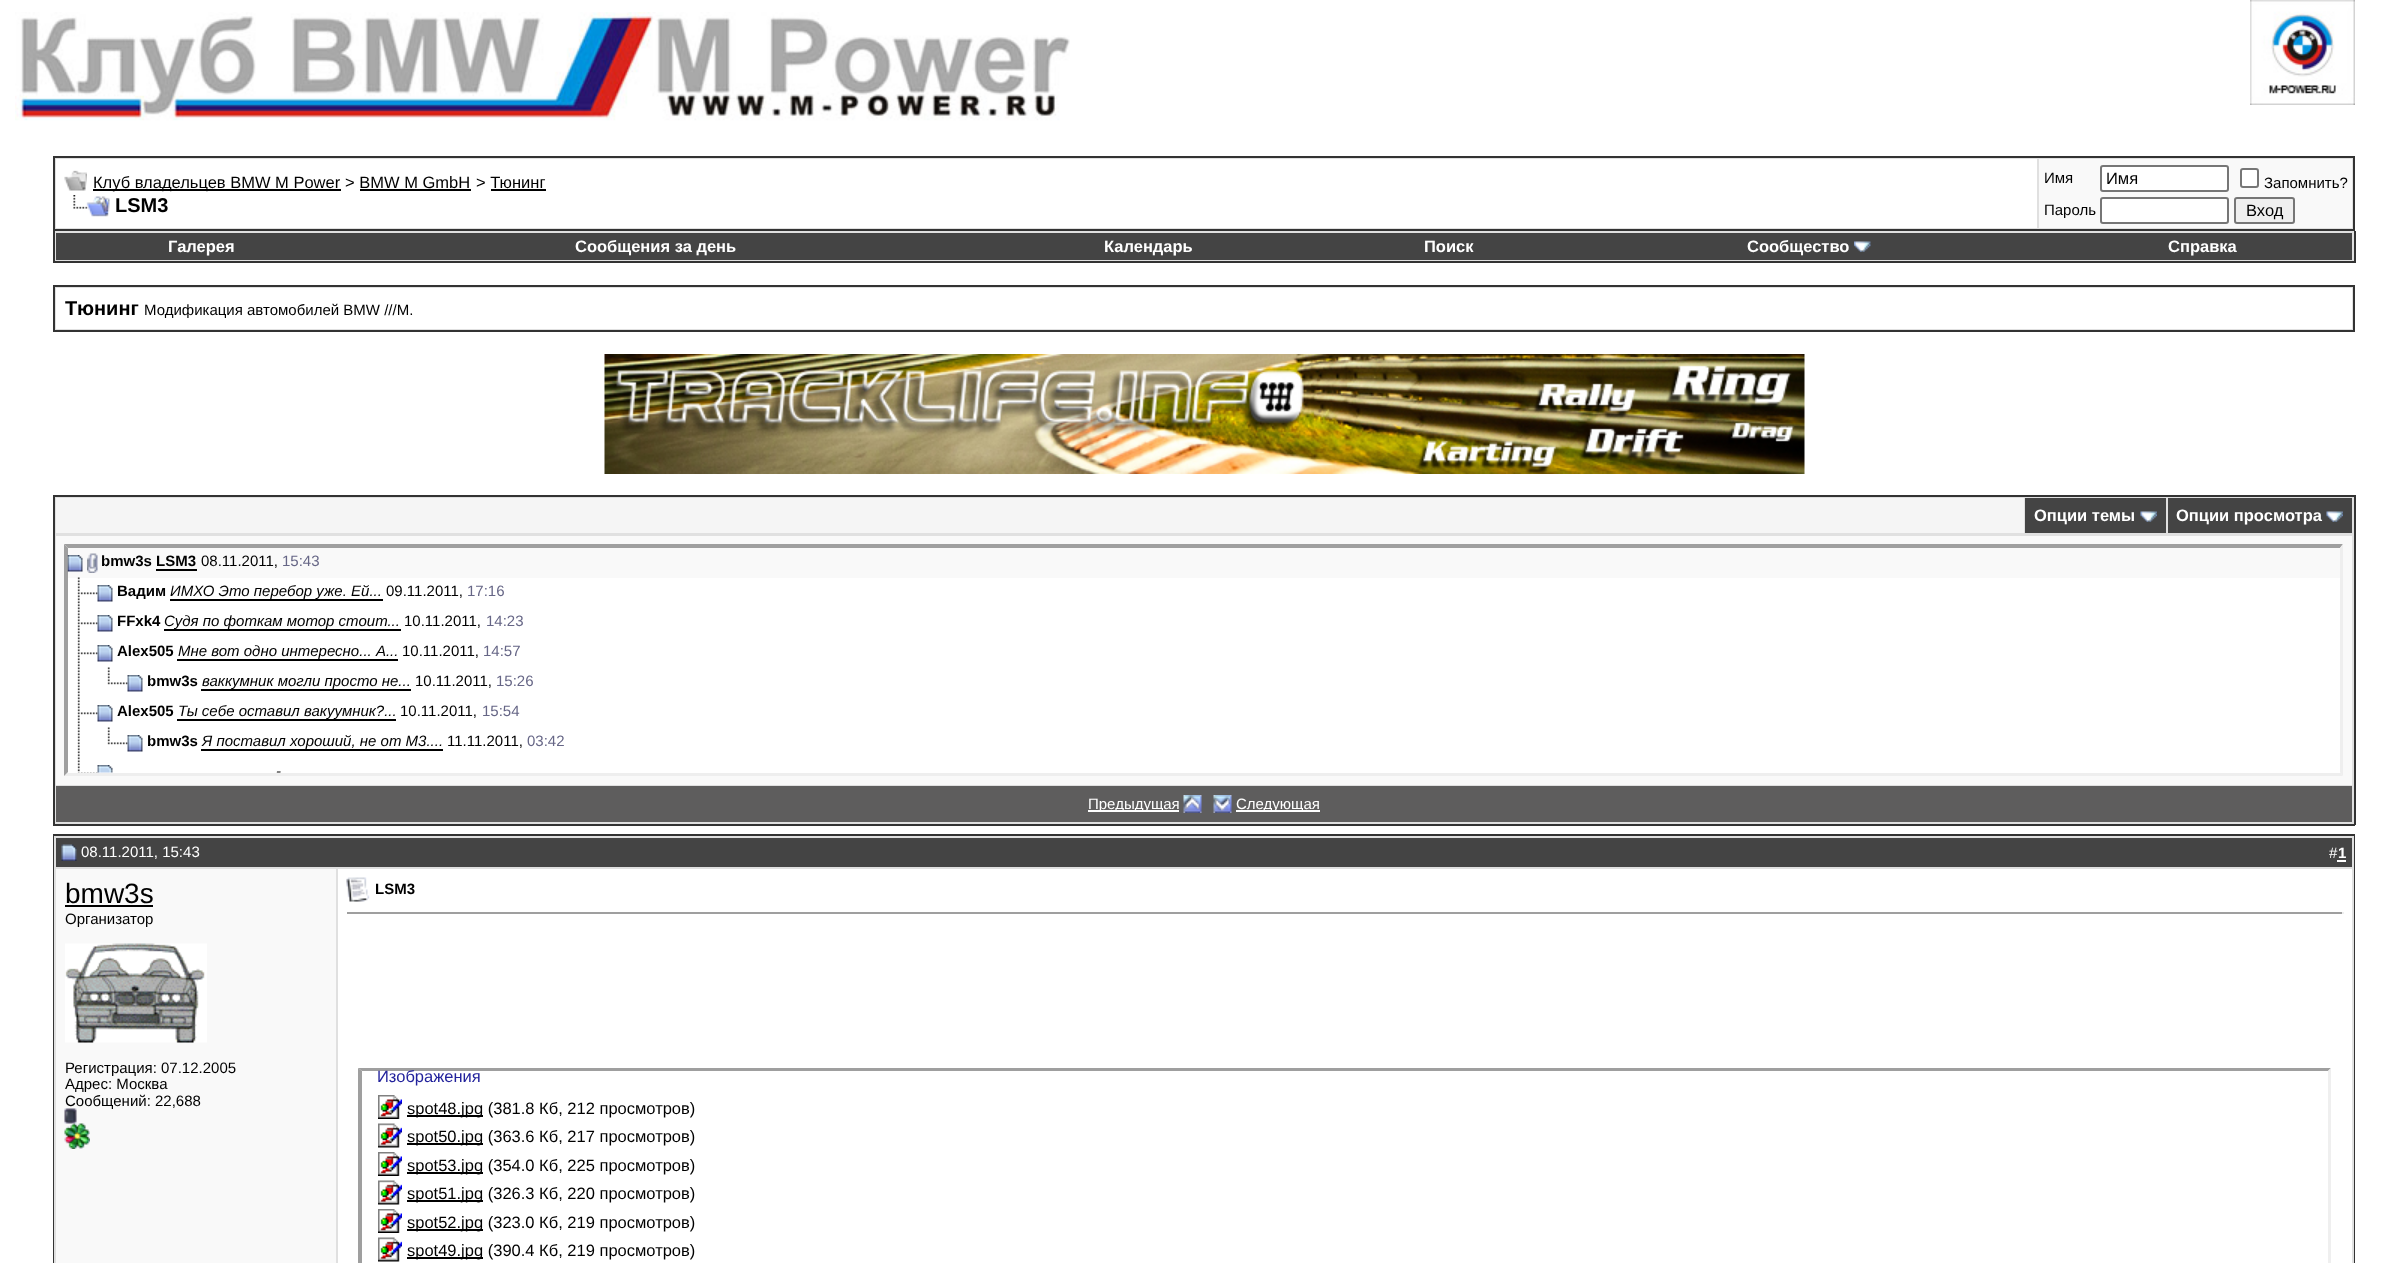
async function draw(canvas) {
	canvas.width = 2407;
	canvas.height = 1263;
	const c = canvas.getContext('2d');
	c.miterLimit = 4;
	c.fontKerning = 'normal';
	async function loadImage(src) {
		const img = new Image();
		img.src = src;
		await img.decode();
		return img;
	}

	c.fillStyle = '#fff';
	c.fillRect(0, 0, 2407, 1263);
	c.drawImage(await loadImage('img1.png'), 15, 12, 1055, 109);
	c.drawImage(await loadImage('img2.png'), 2250, 0, 105, 105);
	c.fillStyle = '#e0e0e0';
	c.beginPath();
	c.rect(54, 157, 2300, 73);
	c.fill();
	c.strokeStyle = '#333';
	c.lineWidth = 2;
	c.stroke();
	c.fillStyle = '#fff';
	c.fillRect(56, 159, 1981, 69);
	c.drawImage(await loadImage('img3.png'), 64, 170, 23, 21);
	c.fillStyle = '#000';
	c.fillRect(93, 189, 248, 2);
	c.font = '16.5px Liberation Sans';
	c.fillText('Клуб владельцев BMW M Power', 93, 188);
	c.fillText('> BMW M GmbH', 345, 188);
	c.fillRect(360, 189, 111, 2);
	c.fillText('> Тюнинг', 476, 188);
	c.fillRect(491, 189, 55, 2);
	c.drawImage(await loadImage('img4.png'), 73, 195, 37, 22);
	c.font = 'bold 20px Liberation Sans';
	c.fillText('LSM3', 115, 212);
	c.fillStyle = '#f9f9f9';
	c.fillRect(2039, 159, 313, 69);
	c.font = '15px Liberation Sans';
	c.fillStyle = '#000';
	c.fillText('Имя', 2044, 183);
	c.fillStyle = '#fff';
	c.beginPath();
	c.roundRect(2101, 166, 127, 25, 2);
	c.fill();
	c.strokeStyle = '#767676';
	c.stroke();
	c.font = '16.5px Liberation Sans';
	c.fillStyle = '#000';
	c.fillText('Имя', 2106, 184);
	c.fillStyle = '#fff';
	c.beginPath();
	c.roundRect(2241, 169, 17, 18, 2);
	c.fill();
	c.stroke();
	c.font = '15px Liberation Sans';
	c.fillStyle = '#000';
	c.fillText('Запомнить?', 2264, 188);
	c.fillText('Пароль', 2044, 215);
	c.fillStyle = '#fff';
	c.beginPath();
	c.roundRect(2101, 198, 127, 25, 2);
	c.fill();
	c.stroke();
	c.fillStyle = '#efefef';
	c.beginPath();
	c.roundRect(2235, 198, 59, 25, 2);
	c.fill();
	c.stroke();
	c.font = '16.5px Liberation Sans';
	c.fillStyle = '#000';
	c.fillText('Вход', 2246, 216);
	for (const [x, y, w, h, color] of [
		[55, 231, 2299, 30, '#e0e0e0'],
		[2354, 231, 2, 32, '#333'],
		[53, 261, 2302, 2, '#333'],
		[53, 231, 2, 32, '#333'],
		[56, 233, 2296, 27, '#444'],
	]) {
		c.fillStyle = color;
		c.fillRect(x, y, w, h);
	}
	c.font = 'bold 16.5px Liberation Sans';
	c.fillStyle = '#fff';
	for (const [text, x, y] of [
		['Галерея', 168, 252],
		['Сообщения за день', 575, 252],
		['Календарь', 1104, 252],
		['Поиск', 1424, 252],
		['Сообщество', 1747, 252],
	]) {
		c.fillText(text, x, y);
	}
	c.drawImage(await loadImage('img5.png'), 1854, 241, 17, 11);
	c.fillText('Справка', 2168, 252);
	c.fillStyle = '#e0e0e0';
	c.beginPath();
	c.rect(54, 286, 2300, 45);
	c.fill();
	c.strokeStyle = '#333';
	c.stroke();
	c.fillStyle = '#fff';
	c.fillRect(56, 288, 2296, 41);
	c.font = 'bold 20px Liberation Sans';
	c.fillStyle = '#000';
	c.fillText('Тюнинг', 65, 315);
	c.font = '15px Liberation Sans';
	c.fillText('Модификация автомобилей BMW ///M.', 144, 315);
	c.drawImage(await loadImage('img6.png'), 604, 354, 1201, 120);
	for (const [x, y, w, h, color] of [
		[55, 497, 2299, 327, '#e0e0e0'],
		[53, 495, 2302, 2, '#333'],
		[2354, 495, 2, 330, '#333'],
		[53, 495, 2, 39, '#333'],
		[56, 498, 1968, 35, '#f5f5f5'],
		[2025, 498, 141, 35, '#444'],
	]) {
		c.fillStyle = color;
		c.fillRect(x, y, w, h);
	}
	c.font = 'bold 16.5px Liberation Sans';
	c.fillStyle = '#fff';
	c.fillText('Опции темы', 2034, 521);
	c.drawImage(await loadImage('img7.png'), 2140, 511, 17, 11);
	c.fillStyle = '#444';
	c.fillRect(2168, 498, 184, 35);
	c.fillStyle = '#fff';
	c.fillText('Опции просмотра', 2176, 521);
	c.drawImage(await loadImage('img8.png'), 2326, 511, 17, 11);
	for (const [x, y, w, h, color] of [
		[53, 824, 2302, 2, '#333'],
		[53, 534, 2, 291, '#333'],
		[56, 536, 2296, 249, '#f9f9f9'],
		[65, 545, 2278, 231, '#fff'],
	]) {
		c.fillStyle = color;
		c.fillRect(x, y, w, h);
	}
	c.fillStyle = '#9f9f9f';
	c.beginPath();
	c.moveTo(64, 544);
	c.lineTo(2343, 544);
	c.lineTo(2340, 548);
	c.lineTo(68, 548);
	c.closePath();
	c.fill();
	c.fillStyle = '#eee';
	c.beginPath();
	c.moveTo(2343, 544);
	c.lineTo(2343, 776);
	c.lineTo(2340, 772);
	c.lineTo(2340, 548);
	c.closePath();
	c.fill();
	c.beginPath();
	c.moveTo(2343, 776);
	c.lineTo(64, 776);
	c.lineTo(68, 772);
	c.lineTo(2340, 772);
	c.closePath();
	c.fill();
	c.fillStyle = '#9f9f9f';
	c.beginPath();
	c.moveTo(64, 776);
	c.lineTo(64, 544);
	c.lineTo(68, 548);
	c.lineTo(68, 772);
	c.closePath();
	c.fill();
	c.fillStyle = '#f9f9f9';
	c.fillRect(68, 548, 2272, 30);
	c.drawImage(await loadImage('img9.png'), 67, 555, 16, 17);
	c.drawImage(await loadImage('img10.png'), 87, 553, 11, 20);
	c.font = 'bold 15px Liberation Sans';
	c.fillStyle = '#000';
	c.fillText('bmw3s LSM3', 101, 566);
	c.font = '15px Liberation Sans';
	c.fillText('08.11.2011,', 201, 566);
	c.fillStyle = '#666686';
	c.fillText('15:43', 282, 566);
	c.fillStyle = '#000';
	c.fillRect(156, 569, 41, 2);
	c.drawImage(await loadImage('img11.png'), 77, 577, 21, 30);
	c.drawImage(await loadImage('img12.png'), 97, 585, 16, 17);
	c.font = 'bold 15px Liberation Sans';
	c.fillText('Вадим', 117, 596);
	c.fillRect(170, 599, 213, 2);
	c.font = 'italic 15px Liberation Sans';
	c.fillText('ИМХО Это перебор уже. Ей...', 170, 596);
	c.font = '15px Liberation Sans';
	c.fillText('09.11.2011,', 386, 596);
	c.fillStyle = '#666686';
	c.fillText('17:16', 467, 596);
	c.drawImage(await loadImage('img13.png'), 77, 607, 21, 30);
	c.drawImage(await loadImage('img12.png'), 97, 615, 16, 17);
	c.font = 'bold 15px Liberation Sans';
	c.fillStyle = '#000';
	c.fillText('FFxk4', 117, 626);
	c.fillRect(164, 629, 237, 2);
	c.font = 'italic 15px Liberation Sans';
	c.fillText('Судя по фоткам мотор стоит...', 164, 626);
	c.font = '15px Liberation Sans';
	c.fillText('10.11.2011,', 404, 626);
	c.fillStyle = '#666686';
	c.fillText('14:23', 486, 626);
	c.drawImage(await loadImage('img13.png'), 77, 637, 21, 30);
	c.drawImage(await loadImage('img12.png'), 97, 645, 16, 17);
	c.font = 'bold 15px Liberation Sans';
	c.fillStyle = '#000';
	c.fillText('Alex505', 117, 656);
	c.fillRect(177, 659, 221, 2);
	c.font = 'italic 15px Liberation Sans';
	c.fillText('Мне вот одно интересно... А...', 178, 656);
	c.font = '15px Liberation Sans';
	c.fillText('10.11.2011,', 402, 656);
	c.fillStyle = '#666686';
	c.fillText('14:57', 483, 656);
	c.drawImage(await loadImage('img14.png'), 77, 667, 3, 30);
	c.drawImage(await loadImage('img15.png'), 107, 667, 21, 18);
	c.drawImage(await loadImage('img12.png'), 127, 675, 16, 17);
	c.font = 'bold 15px Liberation Sans';
	c.fillStyle = '#000';
	c.fillText('bmw3s', 147, 686);
	c.fillRect(201, 689, 210, 2);
	c.font = 'italic 15px Liberation Sans';
	c.fillText('ваккумник могли просто не...', 202, 686);
	c.font = '15px Liberation Sans';
	c.fillText('10.11.2011,', 415, 686);
	c.fillStyle = '#666686';
	c.fillText('15:26', 496, 686);
	c.drawImage(await loadImage('img13.png'), 77, 697, 21, 30);
	c.drawImage(await loadImage('img12.png'), 97, 705, 16, 17);
	c.font = 'bold 15px Liberation Sans';
	c.fillStyle = '#000';
	c.fillText('Alex505', 117, 716);
	c.fillRect(177, 719, 219, 2);
	c.font = 'italic 15px Liberation Sans';
	c.fillText('Ты себе оставил вакуумник?...', 178, 716);
	c.font = '15px Liberation Sans';
	c.fillText('10.11.2011,', 400, 716);
	c.fillStyle = '#666686';
	c.fillText('15:54', 482, 716);
	c.drawImage(await loadImage('img14.png'), 77, 727, 3, 30);
	c.drawImage(await loadImage('img15.png'), 107, 727, 21, 18);
	c.drawImage(await loadImage('img12.png'), 127, 735, 16, 17);
	c.font = 'bold 15px Liberation Sans';
	c.fillStyle = '#000';
	c.fillText('bmw3s', 147, 746);
	c.fillRect(201, 749, 242, 2);
	c.font = 'italic 15px Liberation Sans';
	c.fillText('Я поставил хороший, не от М3....', 202, 746);
	c.font = '15px Liberation Sans';
	c.fillText('11.11.2011,', 447, 746);
	c.fillStyle = '#666686';
	c.fillText('03:42', 527, 746);
	c.fillStyle = '#fff';
	c.fillRect(68, 772, 2272, 1);
	c.drawImage(await loadImage('img16.png'), 77, 757, 21, 16);
	c.drawImage(await loadImage('img17.png'), 97, 765, 16, 8);
	c.font = 'italic 15px Liberation Sans';
	c.fillStyle = '#000';
	c.fillText('-', 276, 776);
	c.fillStyle = '#5e5d5d';
	c.fillRect(56, 786, 2296, 36);
	c.fillStyle = '#fff';
	c.fillRect(1088, 810, 91, 2);
	c.font = '15px Liberation Sans';
	c.fillText('Предыдущая', 1088, 809);
	c.drawImage(await loadImage('img18.png'), 1183, 795, 19, 18);
	c.drawImage(await loadImage('img19.png'), 1213, 795, 19, 18);
	c.fillRect(1236, 810, 84, 2);
	c.fillText('Следующая', 1236, 809);
	c.strokeRect(54, 835, 2300, 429);
	for (const [x, y, w, h, color] of [
		[56, 838, 2296, 29, '#444'],
		[54, 836, 2300, 2, '#e0e0e0'],
		[54, 867, 284, 2, '#e0e0e0'],
		[54, 836, 2, 427, '#e0e0e0'],
	]) {
		c.fillStyle = color;
		c.fillRect(x, y, w, h);
	}
	c.drawImage(await loadImage('img20.png'), 61, 844, 16, 17);
	c.fillStyle = '#fff';
	c.fillText('08.11.2011, 15:43', 81, 857);
	c.fillStyle = '#e0e0e0';
	c.fillRect(2352, 836, 2, 427);
	c.fillRect(338, 867, 2016, 2);
	c.fillStyle = '#fff';
	c.fillText('#', 2329, 858);
	c.font = 'bold 15px Liberation Sans';
	c.fillText('1', 2338, 858);
	for (const [x, y, w, h, color] of [
		[2337, 860, 9, 2, '#fff'],
		[56, 869, 280, 394, '#f9f9f9'],
		[336, 869, 2, 394, '#e0e0e0'],
	]) {
		c.fillStyle = color;
		c.fillRect(x, y, w, h);
	}
	c.font = '28px Liberation Sans';
	c.fillStyle = '#000';
	c.fillText('bmw3s', 65, 903);
	c.fillRect(65, 905, 88, 2);
	c.font = '15px Liberation Sans';
	c.fillText('Организатор', 65, 924);
	c.drawImage(await loadImage('img21.png'), 65, 943, 142, 100);
	for (const [text, x, y] of [
		['Регистрация: 07.12.2005', 65, 1073],
		['Адрес: Москва', 65, 1089],
		['Сообщений: 22,688', 65, 1106],
	]) {
		c.fillText(text, x, y);
	}
	c.drawImage(await loadImage('img22.png'), 64, 1108, 13, 16);
	c.drawImage(await loadImage('img23.png'), 64, 1123, 26, 26);
	c.drawImage(await loadImage('img24.png'), 346, 877, 24, 25);
	c.font = 'bold 15px Liberation Sans';
	c.fillText('LSM3', 375, 894);
	c.fillStyle = '#9f9f9f';
	c.fillRect(347, 912, 1996, 2);
	c.fillStyle = '#eee';
	c.fillRect(2342, 912, 2, 2);
	c.fillStyle = '#9f9f9f';
	c.beginPath();
	c.moveTo(358, 1068);
	c.lineTo(2331, 1068);
	c.lineTo(2328, 1071);
	c.lineTo(362, 1071);
	c.closePath();
	c.fill();
	c.fillStyle = '#efefef';
	c.beginPath();
	c.moveTo(2331, 1068);
	c.lineTo(2331, 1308);
	c.lineTo(2328, 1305);
	c.lineTo(2328, 1071);
	c.closePath();
	c.fill();
	c.fillStyle = '#9f9f9f';
	c.beginPath();
	c.moveTo(358, 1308);
	c.lineTo(358, 1068);
	c.lineTo(362, 1071);
	c.lineTo(362, 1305);
	c.closePath();
	c.fill();
	c.font = '16.5px Liberation Sans';
	c.fillStyle = '#22229c';
	c.fillText('Изображения', 377, 1082);
	c.drawImage(await loadImage('img25.png'), 378, 1095, 24, 24);
	c.fillStyle = '#000';
	c.fillRect(407, 1115, 76, 2);
	c.fillText('spot48.jpg (381.8 Кб, 212 просмотров)', 407, 1114);
	c.drawImage(await loadImage('img26.png'), 378, 1123, 24, 25);
	c.fillRect(407, 1143, 76, 2);
	c.fillText('spot50.jpg (363.6 Кб, 217 просмотров)', 407, 1142);
	c.drawImage(await loadImage('img25.png'), 378, 1152, 24, 24);
	c.fillRect(407, 1172, 76, 2);
	c.fillText('spot53.jpg (354.0 Кб, 225 просмотров)', 407, 1171);
	c.drawImage(await loadImage('img26.png'), 378, 1180, 24, 25);
	c.fillRect(407, 1200, 76, 2);
	c.fillText('spot51.jpg (326.3 Кб, 220 просмотров)', 407, 1199);
	c.drawImage(await loadImage('img25.png'), 378, 1209, 24, 24);
	c.fillRect(407, 1229, 76, 2);
	c.fillText('spot52.jpg (323.0 Кб, 219 просмотров)', 407, 1228);
	c.drawImage(await loadImage('img26.png'), 378, 1237, 24, 25);
	c.fillRect(407, 1257, 76, 2);
	c.fillText('spot49.jpg (390.4 Кб, 219 просмотров)', 407, 1256);
}

draw(document.querySelector('canvas'));
